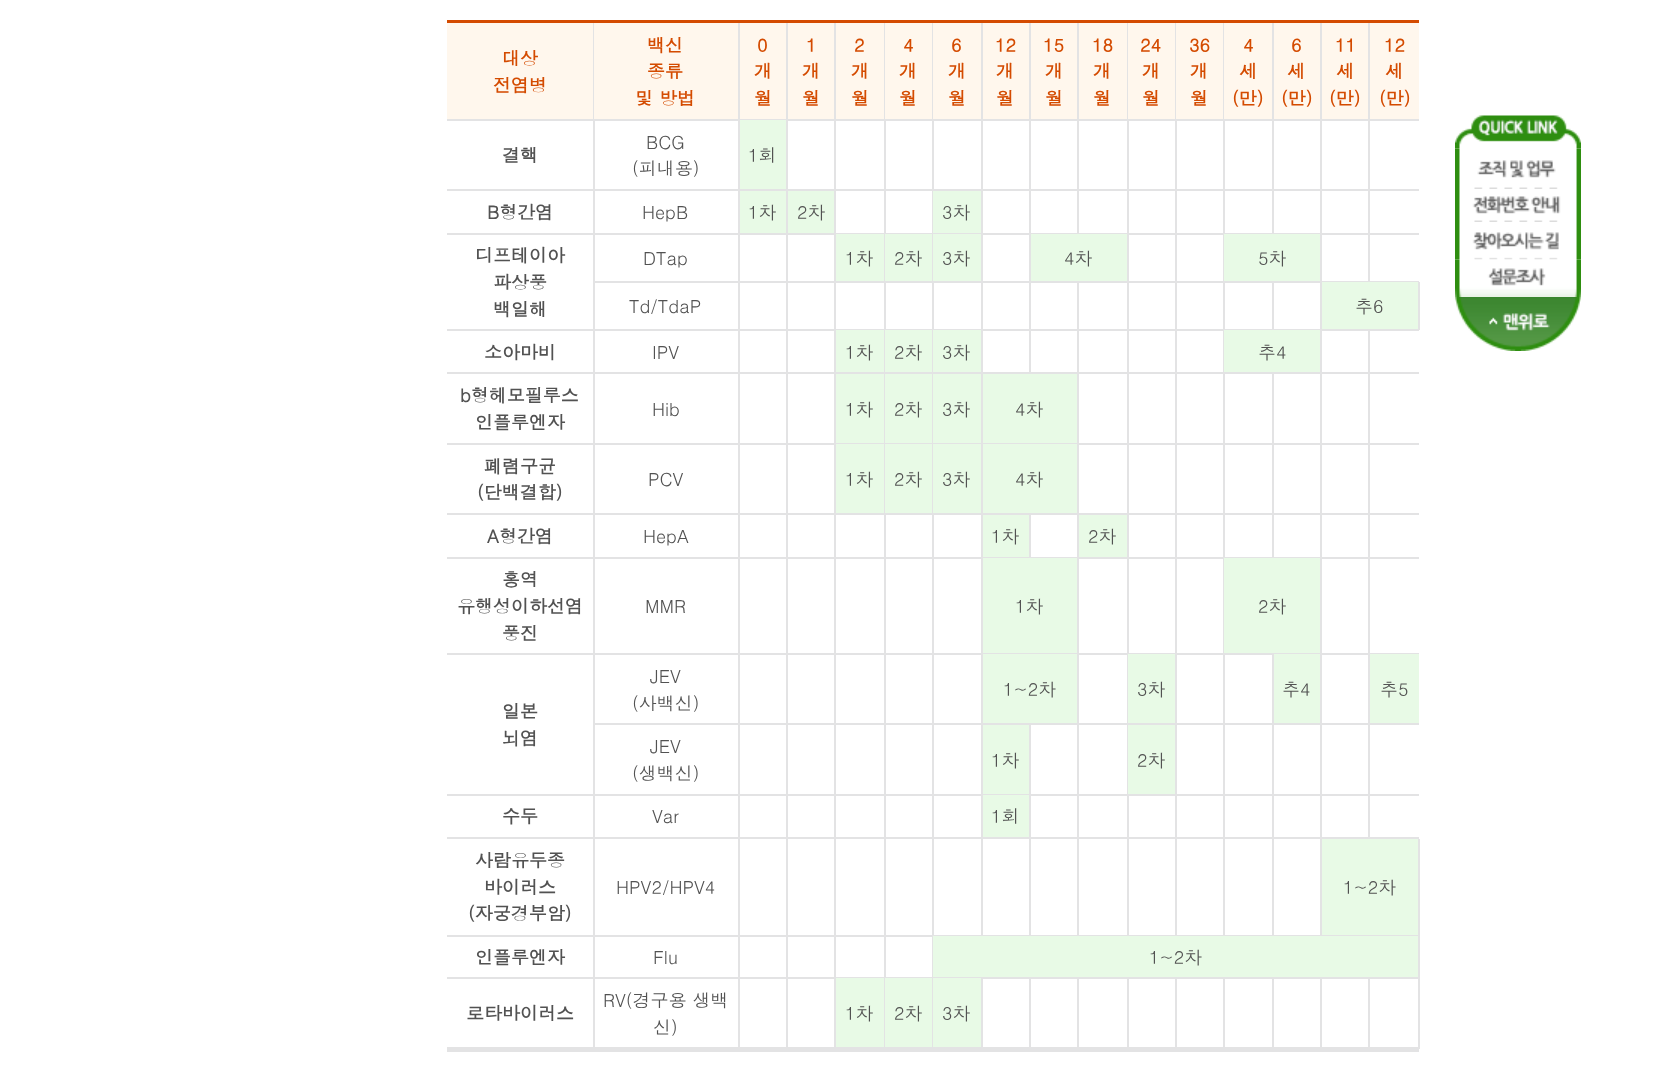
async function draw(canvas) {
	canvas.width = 1660;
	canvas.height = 1083;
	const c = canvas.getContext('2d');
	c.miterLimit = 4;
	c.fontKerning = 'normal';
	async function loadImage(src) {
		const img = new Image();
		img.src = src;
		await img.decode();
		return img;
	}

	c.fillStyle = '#fff';
	c.fillRect(0, 0, 1660, 1083);
	for (const [x, y, w, h, color] of [
		[447, 20, 972, 3, '#d44b00'],
		[447, 1049, 972, 3, '#e3e3e4'],
		[447, 23, 146, 96, '#fff7ed'],
		[593, 23, 1, 97, '#e3e3e4'],
		[447, 119, 147, 2, '#e3e3e4'],
	]) {
		c.fillStyle = color;
		c.fillRect(x, y, w, h);
	}
	c.font = 'bold 18px Dotum';
	c.fillStyle = '#d44b00';
	c.fillText('대상', 502, 65);
	c.fillText('전염병', 493, 92);
	for (const [x, y, w, h, color] of [
		[594, 23, 144, 96, '#fff7ed'],
		[738, 23, 2, 97, '#e3e3e4'],
		[594, 119, 146, 2, '#e3e3e4'],
	]) {
		c.fillStyle = color;
		c.fillRect(x, y, w, h);
	}
	c.fillStyle = '#d44b00';
	for (const [text, x, y] of [
		['백신', 647, 52],
		['종류', 647, 78],
		['및 방법', 635, 105],
	]) {
		c.fillText(text, x, y);
	}
	for (const [x, y, w, h, color] of [
		[740, 23, 46, 96, '#fff7ed'],
		[786, 23, 2, 211, '#e3e3e4'],
		[740, 119, 48, 1, '#e3e3e4'],
	]) {
		c.fillStyle = color;
		c.fillRect(x, y, w, h);
	}
	c.fillStyle = '#d44b00';
	for (const [text, x, y] of [
		['0', 757, 52],
		['개', 754, 78],
		['월', 754, 105],
	]) {
		c.fillText(text, x, y);
	}
	for (const [x, y, w, h, color] of [
		[788, 23, 46, 96, '#fff7ed'],
		[834, 23, 2, 97, '#e3e3e4'],
		[788, 119, 48, 2, '#e3e3e4'],
	]) {
		c.fillStyle = color;
		c.fillRect(x, y, w, h);
	}
	c.fillStyle = '#d44b00';
	for (const [text, x, y] of [
		['1', 806, 52],
		['개', 802, 78],
		['월', 802, 105],
	]) {
		c.fillText(text, x, y);
	}
	for (const [x, y, w, h, color] of [
		[836, 23, 48, 96, '#fff7ed'],
		[884, 23, 1, 97, '#e3e3e4'],
		[836, 119, 49, 2, '#e3e3e4'],
	]) {
		c.fillStyle = color;
		c.fillRect(x, y, w, h);
	}
	c.fillStyle = '#d44b00';
	for (const [text, x, y] of [
		['2', 854, 52],
		['개', 851, 78],
		['월', 851, 105],
	]) {
		c.fillText(text, x, y);
	}
	for (const [x, y, w, h, color] of [
		[885, 23, 47, 96, '#fff7ed'],
		[932, 23, 1, 97, '#e3e3e4'],
		[885, 119, 48, 2, '#e3e3e4'],
	]) {
		c.fillStyle = color;
		c.fillRect(x, y, w, h);
	}
	c.fillStyle = '#d44b00';
	for (const [text, x, y] of [
		['4', 903, 52],
		['개', 899, 78],
		['월', 899, 105],
	]) {
		c.fillText(text, x, y);
	}
	for (const [x, y, w, h, color] of [
		[933, 23, 48, 96, '#fff7ed'],
		[981, 23, 2, 97, '#e3e3e4'],
		[933, 119, 50, 2, '#e3e3e4'],
	]) {
		c.fillStyle = color;
		c.fillRect(x, y, w, h);
	}
	c.fillStyle = '#d44b00';
	for (const [text, x, y] of [
		['6', 951, 52],
		['개', 948, 78],
		['월', 948, 105],
	]) {
		c.fillText(text, x, y);
	}
	for (const [x, y, w, h, color] of [
		[983, 23, 46, 96, '#fff7ed'],
		[1029, 23, 2, 97, '#e3e3e4'],
		[983, 119, 48, 2, '#e3e3e4'],
	]) {
		c.fillStyle = color;
		c.fillRect(x, y, w, h);
	}
	c.fillStyle = '#d44b00';
	for (const [text, x, y] of [
		['12', 995, 52],
		['개', 996, 78],
		['월', 996, 105],
	]) {
		c.fillText(text, x, y);
	}
	for (const [x, y, w, h, color] of [
		[1031, 23, 46, 96, '#fff7ed'],
		[1077, 23, 2, 97, '#e3e3e4'],
		[1031, 119, 48, 2, '#e3e3e4'],
	]) {
		c.fillStyle = color;
		c.fillRect(x, y, w, h);
	}
	c.fillStyle = '#d44b00';
	for (const [text, x, y] of [
		['15', 1043, 52],
		['개', 1045, 78],
		['월', 1045, 105],
	]) {
		c.fillText(text, x, y);
	}
	for (const [x, y, w, h, color] of [
		[1079, 23, 48, 96, '#fff7ed'],
		[1127, 23, 1, 97, '#e3e3e4'],
		[1079, 119, 49, 2, '#e3e3e4'],
	]) {
		c.fillStyle = color;
		c.fillRect(x, y, w, h);
	}
	c.fillStyle = '#d44b00';
	for (const [text, x, y] of [
		['18', 1092, 52],
		['개', 1093, 78],
		['월', 1093, 105],
	]) {
		c.fillText(text, x, y);
	}
	for (const [x, y, w, h, color] of [
		[1128, 23, 47, 96, '#fff7ed'],
		[1175, 23, 1, 97, '#e3e3e4'],
		[1128, 119, 48, 2, '#e3e3e4'],
	]) {
		c.fillStyle = color;
		c.fillRect(x, y, w, h);
	}
	c.fillStyle = '#d44b00';
	for (const [text, x, y] of [
		['24', 1140, 52],
		['개', 1142, 78],
		['월', 1142, 105],
	]) {
		c.fillText(text, x, y);
	}
	for (const [x, y, w, h, color] of [
		[1176, 23, 47, 96, '#fff7ed'],
		[1223, 23, 1, 97, '#e3e3e4'],
		[1176, 119, 48, 2, '#e3e3e4'],
	]) {
		c.fillStyle = color;
		c.fillRect(x, y, w, h);
	}
	c.fillStyle = '#d44b00';
	for (const [text, x, y] of [
		['36', 1189, 52],
		['개', 1190, 78],
		['월', 1190, 105],
	]) {
		c.fillText(text, x, y);
	}
	for (const [x, y, w, h, color] of [
		[1224, 23, 48, 96, '#fff7ed'],
		[1272, 23, 2, 97, '#e3e3e4'],
		[1224, 119, 50, 2, '#e3e3e4'],
	]) {
		c.fillStyle = color;
		c.fillRect(x, y, w, h);
	}
	c.fillStyle = '#d44b00';
	for (const [text, x, y] of [
		['4', 1243, 52],
		['세', 1239, 78],
		['(만)', 1232, 105],
	]) {
		c.fillText(text, x, y);
	}
	for (const [x, y, w, h, color] of [
		[1274, 23, 46, 96, '#fff7ed'],
		[1320, 23, 2, 97, '#e3e3e4'],
		[1274, 119, 48, 2, '#e3e3e4'],
	]) {
		c.fillStyle = color;
		c.fillRect(x, y, w, h);
	}
	c.fillStyle = '#d44b00';
	for (const [text, x, y] of [
		['6', 1291, 52],
		['세', 1287, 78],
		['(만)', 1281, 105],
	]) {
		c.fillText(text, x, y);
	}
	for (const [x, y, w, h, color] of [
		[1322, 23, 46, 96, '#fff7ed'],
		[1368, 23, 2, 97, '#e3e3e4'],
		[1322, 119, 97, 2, '#e3e3e4'],
	]) {
		c.fillStyle = color;
		c.fillRect(x, y, w, h);
	}
	c.fillStyle = '#d44b00';
	for (const [text, x, y] of [
		['11', 1335, 52],
		['세', 1336, 78],
		['(만)', 1329, 105],
	]) {
		c.fillText(text, x, y);
	}
	c.fillStyle = '#fff7ed';
	c.fillRect(1370, 23, 49, 96);
	c.fillStyle = '#d44b00';
	for (const [text, x, y] of [
		['12', 1384, 52],
		['세', 1385, 78],
		['(만)', 1379, 105],
	]) {
		c.fillText(text, x, y);
	}
	c.fillStyle = '#e3e3e4';
	c.fillRect(593, 120, 2, 114);
	c.fillRect(447, 189, 147, 2);
	c.fillStyle = '#525252';
	c.fillText('결핵', 502, 162);
	c.fillStyle = '#e3e3e4';
	c.fillRect(738, 120, 2, 114);
	c.fillRect(594, 189, 194, 2);
	c.font = '18px Dotum';
	c.fillStyle = '#525252';
	c.fillText('BCG', 646, 149);
	c.fillText('(피내용)', 632, 175);
	c.fillStyle = '#e8fae6';
	c.fillRect(740, 120, 46, 69);
	c.fillStyle = '#525252';
	c.fillText('1회', 748, 162);
	for (const [x, y, w, h, color] of [
		[834, 120, 2, 114, '#e3e3e4'],
		[788, 189, 48, 2, '#e3e3e4'],
		[884, 120, 2, 114, '#e3e3e4'],
		[836, 189, 49, 2, '#e3e3e4'],
		[932, 120, 2, 71, '#e3e3e4'],
		[885, 189, 48, 2, '#e3e3e4'],
		[981, 120, 2, 162, '#e3e3e4'],
		[933, 189, 50, 2, '#e3e3e4'],
		[1029, 120, 2, 114, '#e3e3e4'],
		[983, 189, 48, 2, '#e3e3e4'],
		[1077, 120, 2, 114, '#e3e3e4'],
		[1031, 189, 48, 2, '#e3e3e4'],
		[1127, 120, 2, 114, '#e3e3e4'],
		[1079, 189, 49, 2, '#e3e3e4'],
		[1175, 120, 2, 114, '#e3e3e4'],
		[1128, 189, 48, 2, '#e3e3e4'],
		[1223, 120, 2, 114, '#e3e3e4'],
		[1176, 189, 48, 2, '#e3e3e4'],
		[1272, 120, 2, 114, '#e3e3e4'],
		[1224, 189, 50, 2, '#e3e3e4'],
		[1320, 120, 2, 162, '#e3e3e4'],
		[1274, 189, 48, 2, '#e3e3e4'],
		[1368, 120, 2, 114, '#e3e3e4'],
		[1322, 189, 97, 2, '#e3e3e4'],
		[447, 233, 389, 2, '#e3e3e4'],
	]) {
		c.fillStyle = color;
		c.fillRect(x, y, w, h);
	}
	c.font = 'bold 18px Dotum';
	c.fillStyle = '#525252';
	c.fillText('B형간염', 487, 219);
	c.fillStyle = '#e8fae6';
	c.fillRect(740, 191, 46, 42);
	c.font = '18px Dotum';
	c.fillStyle = '#525252';
	c.fillText('1차', 748, 219);
	c.fillStyle = '#e8fae6';
	c.fillRect(788, 191, 46, 42);
	c.fillStyle = '#525252';
	c.fillText('2차', 797, 219);
	c.fillStyle = '#e3e3e4';
	c.fillRect(932, 191, 1, 91);
	c.fillRect(885, 233, 98, 1);
	c.fillStyle = '#525252';
	c.fillText('HepB', 642, 219);
	c.fillStyle = '#e8fae6';
	c.fillRect(933, 191, 48, 42);
	c.fillStyle = '#525252';
	c.fillText('3차', 942, 219);
	for (const [x, y, w, h, color] of [
		[836, 233, 49, 1, '#e3e3e4'],
		[983, 233, 48, 2, '#e3e3e4'],
		[1031, 233, 97, 1, '#e3e3e4'],
		[1128, 233, 96, 2, '#e3e3e4'],
		[1224, 233, 98, 1, '#e3e3e4'],
		[1322, 233, 97, 2, '#e3e3e4'],
		[593, 234, 2, 96, '#e3e3e4'],
		[447, 329, 147, 2, '#e3e3e4'],
	]) {
		c.fillStyle = color;
		c.fillRect(x, y, w, h);
	}
	c.font = 'bold 18px Dotum';
	c.fillStyle = '#525252';
	for (const [text, x, y] of [
		['디프테이아', 475, 262],
		['파상풍', 493, 289],
		['백일해', 493, 316],
	]) {
		c.fillText(text, x, y);
	}
	for (const [x, y, w, h, color] of [
		[786, 234, 2, 48, '#e3e3e4'],
		[740, 281, 48, 2, '#e3e3e4'],
		[834, 234, 2, 48, '#e3e3e4'],
		[788, 281, 48, 2, '#e3e3e4'],
		[836, 234, 48, 47, '#e8fae6'],
		[884, 234, 1, 48, '#e3e3e4'],
		[836, 281, 147, 2, '#e3e3e4'],
	]) {
		c.fillStyle = color;
		c.fillRect(x, y, w, h);
	}
	c.font = '18px Dotum';
	c.fillStyle = '#525252';
	c.fillText('1차', 845, 265);
	c.fillStyle = '#e8fae6';
	c.fillRect(885, 234, 47, 47);
	c.fillStyle = '#525252';
	c.fillText('2차', 894, 265);
	c.fillStyle = '#e8fae6';
	c.fillRect(933, 234, 48, 47);
	c.fillStyle = '#525252';
	c.fillText('3차', 942, 265);
	for (const [x, y, w, h, color] of [
		[1029, 234, 2, 48, '#e3e3e4'],
		[983, 281, 48, 2, '#e3e3e4'],
		[1031, 234, 96, 47, '#e8fae6'],
		[1127, 234, 2, 48, '#e3e3e4'],
		[1031, 281, 97, 2, '#e3e3e4'],
	]) {
		c.fillStyle = color;
		c.fillRect(x, y, w, h);
	}
	c.fillStyle = '#525252';
	c.fillText('4차', 1064, 265);
	for (const [x, y, w, h, color] of [
		[1175, 234, 2, 48, '#e3e3e4'],
		[1128, 281, 48, 2, '#e3e3e4'],
		[1223, 234, 1, 48, '#e3e3e4'],
		[1176, 281, 146, 2, '#e3e3e4'],
		[1368, 234, 2, 48, '#e3e3e4'],
		[1322, 281, 97, 1, '#e3e3e4'],
		[738, 234, 2, 48, '#e3e3e4'],
		[594, 281, 146, 2, '#e3e3e4'],
	]) {
		c.fillStyle = color;
		c.fillRect(x, y, w, h);
	}
	c.fillStyle = '#525252';
	c.fillText('DTap', 643, 265);
	c.fillStyle = '#e8fae6';
	c.fillRect(1224, 234, 96, 47);
	c.fillStyle = '#525252';
	c.fillText('5차', 1258, 265);
	c.fillStyle = '#e3e3e4';
	c.fillRect(738, 282, 2, 48);
	c.fillRect(594, 329, 146, 2);
	c.fillStyle = '#525252';
	c.fillText('Td/TdaP', 629, 313);
	for (const [x, y, w, h, color] of [
		[786, 282, 2, 48, '#e3e3e4'],
		[740, 329, 48, 2, '#e3e3e4'],
		[834, 282, 2, 48, '#e3e3e4'],
		[788, 329, 48, 2, '#e3e3e4'],
		[884, 282, 2, 48, '#e3e3e4'],
		[836, 329, 49, 1, '#e3e3e4'],
		[932, 282, 2, 48, '#e3e3e4'],
		[885, 329, 48, 1, '#e3e3e4'],
		[981, 282, 2, 276, '#e3e3e4'],
		[933, 329, 50, 1, '#e3e3e4'],
		[1029, 282, 2, 48, '#e3e3e4'],
		[983, 329, 48, 2, '#e3e3e4'],
		[1077, 282, 2, 48, '#e3e3e4'],
		[1031, 329, 48, 2, '#e3e3e4'],
		[1127, 282, 2, 48, '#e3e3e4'],
		[1079, 329, 49, 2, '#e3e3e4'],
		[1175, 282, 2, 48, '#e3e3e4'],
		[1128, 329, 48, 2, '#e3e3e4'],
		[1223, 282, 2, 48, '#e3e3e4'],
		[1176, 329, 48, 2, '#e3e3e4'],
		[1272, 282, 2, 48, '#e3e3e4'],
		[1224, 329, 50, 1, '#e3e3e4'],
		[1320, 282, 2, 162, '#e3e3e4'],
		[1274, 329, 48, 1, '#e3e3e4'],
		[1322, 282, 96, 47, '#e8fae6'],
		[1418, 282, 2, 48, '#e3e3e4'],
		[1322, 329, 97, 2, '#e3e3e4'],
	]) {
		c.fillStyle = color;
		c.fillRect(x, y, w, h);
	}
	c.fillStyle = '#525252';
	c.fillText('추6', 1355, 313);
	c.fillStyle = '#e3e3e4';
	c.fillRect(593, 330, 2, 114);
	c.fillRect(447, 372, 147, 2);
	c.font = 'bold 18px Dotum';
	c.fillStyle = '#525252';
	c.fillText('소아마비', 484, 359);
	for (const [x, y, w, h, color] of [
		[786, 330, 2, 114, '#e3e3e4'],
		[740, 372, 48, 2, '#e3e3e4'],
		[834, 330, 2, 114, '#e3e3e4'],
		[788, 372, 48, 2, '#e3e3e4'],
		[836, 330, 48, 42, '#e8fae6'],
		[884, 330, 1, 185, '#e3e3e4'],
		[836, 372, 49, 2, '#e3e3e4'],
	]) {
		c.fillStyle = color;
		c.fillRect(x, y, w, h);
	}
	c.font = '18px Dotum';
	c.fillStyle = '#525252';
	c.fillText('1차', 845, 359);
	for (const [x, y, w, h, color] of [
		[885, 330, 47, 42, '#e8fae6'],
		[932, 330, 1, 185, '#e3e3e4'],
		[885, 372, 98, 2, '#e3e3e4'],
	]) {
		c.fillStyle = color;
		c.fillRect(x, y, w, h);
	}
	c.fillStyle = '#525252';
	c.fillText('2차', 894, 359);
	c.fillStyle = '#e8fae6';
	c.fillRect(933, 330, 48, 42);
	c.fillStyle = '#525252';
	c.fillText('3차', 942, 359);
	for (const [x, y, w, h, color] of [
		[1029, 330, 2, 44, '#e3e3e4'],
		[983, 372, 48, 2, '#e3e3e4'],
		[1077, 330, 2, 465, '#e3e3e4'],
		[1031, 372, 48, 2, '#e3e3e4'],
		[1127, 330, 2, 114, '#e3e3e4'],
		[1079, 372, 49, 2, '#e3e3e4'],
		[1175, 330, 2, 114, '#e3e3e4'],
		[1128, 372, 48, 2, '#e3e3e4'],
		[1223, 330, 1, 44, '#e3e3e4'],
		[1176, 372, 146, 2, '#e3e3e4'],
		[1368, 330, 2, 114, '#e3e3e4'],
		[1322, 372, 97, 2, '#e3e3e4'],
		[738, 330, 2, 114, '#e3e3e4'],
		[594, 372, 146, 2, '#e3e3e4'],
	]) {
		c.fillStyle = color;
		c.fillRect(x, y, w, h);
	}
	c.fillStyle = '#525252';
	c.fillText('IPV', 652, 359);
	c.fillStyle = '#e8fae6';
	c.fillRect(1224, 330, 96, 42);
	c.fillStyle = '#525252';
	c.fillText('추4', 1258, 359);
	c.fillStyle = '#e3e3e4';
	c.fillRect(447, 443, 389, 2);
	c.font = 'bold 18px Dotum';
	c.fillStyle = '#525252';
	c.fillText('b형헤모필루스', 460, 402);
	c.fillText('인플루엔자', 475, 429);
	c.font = '18px Dotum';
	c.fillText('Hib', 652, 416);
	c.fillStyle = '#e8fae6';
	c.fillRect(836, 374, 48, 69);
	c.fillStyle = '#e3e3e4';
	c.fillRect(836, 443, 243, 1);
	c.fillStyle = '#525252';
	c.fillText('1차', 845, 416);
	c.fillStyle = '#e8fae6';
	c.fillRect(885, 374, 47, 69);
	c.fillStyle = '#525252';
	c.fillText('2차', 894, 416);
	c.fillStyle = '#e8fae6';
	c.fillRect(933, 374, 48, 69);
	c.fillStyle = '#525252';
	c.fillText('3차', 942, 416);
	c.fillStyle = '#e8fae6';
	c.fillRect(983, 374, 94, 69);
	c.fillStyle = '#525252';
	c.fillText('4차', 1015, 416);
	for (const [x, y, w, h, color] of [
		[1223, 374, 2, 70, '#e3e3e4'],
		[1176, 443, 48, 2, '#e3e3e4'],
		[1272, 374, 2, 70, '#e3e3e4'],
		[1224, 443, 195, 2, '#e3e3e4'],
		[1079, 443, 97, 2, '#e3e3e4'],
		[593, 444, 2, 114, '#e3e3e4'],
		[447, 513, 147, 2, '#e3e3e4'],
	]) {
		c.fillStyle = color;
		c.fillRect(x, y, w, h);
	}
	c.font = 'bold 18px Dotum';
	c.fillStyle = '#525252';
	c.fillText('폐렴구균', 484, 473);
	c.fillText('(단백결합)', 477, 499);
	for (const [x, y, w, h, color] of [
		[786, 444, 2, 114, '#e3e3e4'],
		[740, 513, 48, 2, '#e3e3e4'],
		[834, 444, 2, 114, '#e3e3e4'],
		[788, 513, 291, 2, '#e3e3e4'],
		[1127, 444, 2, 114, '#e3e3e4'],
		[1079, 513, 49, 2, '#e3e3e4'],
		[1175, 444, 2, 114, '#e3e3e4'],
		[1128, 513, 48, 2, '#e3e3e4'],
		[1223, 444, 2, 114, '#e3e3e4'],
		[1176, 513, 48, 2, '#e3e3e4'],
		[1272, 444, 2, 114, '#e3e3e4'],
		[1224, 513, 50, 2, '#e3e3e4'],
		[1320, 444, 2, 210, '#e3e3e4'],
		[1274, 513, 48, 2, '#e3e3e4'],
		[1368, 444, 2, 114, '#e3e3e4'],
		[1322, 513, 97, 2, '#e3e3e4'],
		[738, 444, 2, 114, '#e3e3e4'],
		[594, 513, 146, 2, '#e3e3e4'],
	]) {
		c.fillStyle = color;
		c.fillRect(x, y, w, h);
	}
	c.font = '18px Dotum';
	c.fillStyle = '#525252';
	c.fillText('PCV', 648, 486);
	c.fillStyle = '#e8fae6';
	c.fillRect(836, 444, 48, 69);
	c.fillStyle = '#525252';
	c.fillText('1차', 845, 486);
	c.fillStyle = '#e8fae6';
	c.fillRect(885, 444, 47, 69);
	c.fillStyle = '#525252';
	c.fillText('2차', 894, 486);
	c.fillStyle = '#e8fae6';
	c.fillRect(933, 444, 48, 69);
	c.fillStyle = '#525252';
	c.fillText('3차', 942, 486);
	c.fillStyle = '#e8fae6';
	c.fillRect(983, 444, 94, 69);
	c.fillStyle = '#525252';
	c.fillText('4차', 1015, 486);
	c.fillStyle = '#e3e3e4';
	c.fillRect(447, 557, 389, 2);
	c.font = 'bold 18px Dotum';
	c.fillStyle = '#525252';
	c.fillText('A형간염', 487, 543);
	c.font = '18px Dotum';
	c.fillText('HepA', 643, 543);
	for (const [x, y, w, h, color] of [
		[884, 515, 2, 43, '#e3e3e4'],
		[836, 557, 49, 2, '#e3e3e4'],
		[932, 515, 2, 43, '#e3e3e4'],
		[885, 557, 98, 2, '#e3e3e4'],
		[983, 515, 46, 42, '#e8fae6'],
		[1029, 515, 2, 43, '#e3e3e4'],
		[983, 557, 96, 1, '#e3e3e4'],
	]) {
		c.fillStyle = color;
		c.fillRect(x, y, w, h);
	}
	c.fillStyle = '#525252';
	c.fillText('1차', 991, 543);
	c.fillStyle = '#e8fae6';
	c.fillRect(1079, 515, 48, 42);
	c.fillStyle = '#e3e3e4';
	c.fillRect(1079, 557, 145, 2);
	c.fillStyle = '#525252';
	c.fillText('2차', 1088, 543);
	for (const [x, y, w, h, color] of [
		[1224, 557, 98, 1, '#e3e3e4'],
		[1322, 557, 97, 2, '#e3e3e4'],
		[593, 558, 2, 96, '#e3e3e4'],
		[447, 653, 147, 2, '#e3e3e4'],
	]) {
		c.fillStyle = color;
		c.fillRect(x, y, w, h);
	}
	c.font = 'bold 18px Dotum';
	c.fillStyle = '#525252';
	for (const [text, x, y] of [
		['홍역', 502, 586],
		['유행성이하선염', 457, 613],
		['풍진', 502, 640],
	]) {
		c.fillText(text, x, y);
	}
	for (const [x, y, w, h, color] of [
		[786, 558, 2, 96, '#e3e3e4'],
		[740, 653, 48, 2, '#e3e3e4'],
		[834, 558, 2, 96, '#e3e3e4'],
		[788, 653, 48, 2, '#e3e3e4'],
		[884, 558, 2, 96, '#e3e3e4'],
		[836, 653, 49, 2, '#e3e3e4'],
		[932, 558, 2, 96, '#e3e3e4'],
		[885, 653, 48, 2, '#e3e3e4'],
		[981, 558, 2, 96, '#e3e3e4'],
		[933, 653, 50, 2, '#e3e3e4'],
		[983, 558, 94, 95, '#e8fae6'],
		[983, 653, 96, 1, '#e3e3e4'],
	]) {
		c.fillStyle = color;
		c.fillRect(x, y, w, h);
	}
	c.font = '18px Dotum';
	c.fillStyle = '#525252';
	c.fillText('1차', 1015, 613);
	for (const [x, y, w, h, color] of [
		[1127, 558, 2, 96, '#e3e3e4'],
		[1079, 653, 49, 2, '#e3e3e4'],
		[1175, 558, 2, 96, '#e3e3e4'],
		[1128, 653, 48, 1, '#e3e3e4'],
		[1223, 558, 1, 96, '#e3e3e4'],
		[1176, 653, 146, 2, '#e3e3e4'],
		[1368, 558, 2, 96, '#e3e3e4'],
		[1322, 653, 48, 2, '#e3e3e4'],
		[738, 558, 2, 96, '#e3e3e4'],
		[594, 653, 146, 2, '#e3e3e4'],
	]) {
		c.fillStyle = color;
		c.fillRect(x, y, w, h);
	}
	c.fillStyle = '#525252';
	c.fillText('MMR', 645, 613);
	c.fillStyle = '#e8fae6';
	c.fillRect(1224, 558, 96, 95);
	c.fillStyle = '#525252';
	c.fillText('2차', 1258, 613);
	for (const [x, y, w, h, color] of [
		[1370, 653, 49, 1, '#e3e3e4'],
		[738, 654, 2, 141, '#e3e3e4'],
		[593, 654, 2, 141, '#e3e3e4'],
		[594, 723, 146, 2, '#e3e3e4'],
	]) {
		c.fillStyle = color;
		c.fillRect(x, y, w, h);
	}
	c.fillStyle = '#525252';
	c.fillText('JEV', 650, 683);
	c.fillText('(사백신)', 632, 710);
	for (const [x, y, w, h, color] of [
		[786, 654, 2, 141, '#e3e3e4'],
		[740, 723, 48, 2, '#e3e3e4'],
		[834, 654, 2, 141, '#e3e3e4'],
		[788, 723, 48, 2, '#e3e3e4'],
		[884, 654, 2, 141, '#e3e3e4'],
		[836, 723, 49, 2, '#e3e3e4'],
		[932, 654, 2, 141, '#e3e3e4'],
		[885, 723, 48, 2, '#e3e3e4'],
		[981, 654, 2, 141, '#e3e3e4'],
		[933, 723, 146, 2, '#e3e3e4'],
		[1127, 654, 1, 141, '#e3e3e4'],
		[1079, 723, 49, 2, '#e3e3e4'],
		[1223, 654, 2, 141, '#e3e3e4'],
		[1175, 654, 2, 141, '#e3e3e4'],
		[1176, 723, 48, 2, '#e3e3e4'],
		[1272, 654, 2, 141, '#e3e3e4'],
		[1224, 723, 50, 2, '#e3e3e4'],
		[1368, 654, 2, 141, '#e3e3e4'],
		[1322, 723, 97, 2, '#e3e3e4'],
		[983, 654, 94, 69, '#e8fae6'],
	]) {
		c.fillStyle = color;
		c.fillRect(x, y, w, h);
	}
	c.fillStyle = '#525252';
	c.fillText('1~2차', 1003, 696);
	c.fillStyle = '#e8fae6';
	c.fillRect(1128, 654, 47, 69);
	c.fillStyle = '#e3e3e4';
	c.fillRect(1128, 723, 48, 2);
	c.fillStyle = '#525252';
	c.fillText('3차', 1137, 696);
	for (const [x, y, w, h, color] of [
		[1274, 654, 46, 69, '#e8fae6'],
		[1320, 654, 2, 141, '#e3e3e4'],
		[1274, 723, 48, 2, '#e3e3e4'],
	]) {
		c.fillStyle = color;
		c.fillRect(x, y, w, h);
	}
	c.fillStyle = '#525252';
	c.fillText('추4', 1282, 696);
	c.fillStyle = '#e8fae6';
	c.fillRect(1370, 654, 49, 69);
	c.fillStyle = '#525252';
	c.fillText('추5', 1380, 696);
	c.fillStyle = '#e3e3e4';
	c.fillRect(447, 794, 147, 2);
	c.font = 'bold 18px Dotum';
	c.fillStyle = '#525252';
	c.fillText('일본', 502, 718);
	c.fillText('뇌염', 502, 745);
	c.fillStyle = '#e3e3e4';
	c.fillRect(594, 794, 389, 2);
	c.font = '18px Dotum';
	c.fillStyle = '#525252';
	c.fillText('JEV', 650, 753);
	c.fillText('(생백신)', 632, 780);
	for (const [x, y, w, h, color] of [
		[983, 725, 46, 69, '#e8fae6'],
		[1029, 725, 2, 211, '#e3e3e4'],
		[983, 794, 48, 1, '#e3e3e4'],
	]) {
		c.fillStyle = color;
		c.fillRect(x, y, w, h);
	}
	c.fillStyle = '#525252';
	c.fillText('1차', 991, 767);
	c.fillStyle = '#e8fae6';
	c.fillRect(1128, 725, 47, 69);
	c.fillStyle = '#525252';
	c.fillText('2차', 1137, 767);
	for (const [x, y, w, h, color] of [
		[1031, 794, 388, 2, '#e3e3e4'],
		[593, 795, 2, 141, '#e3e3e4'],
		[447, 837, 147, 2, '#e3e3e4'],
	]) {
		c.fillStyle = color;
		c.fillRect(x, y, w, h);
	}
	c.font = 'bold 18px Dotum';
	c.fillStyle = '#525252';
	c.fillText('수두', 502, 823);
	for (const [x, y, w, h, color] of [
		[786, 795, 2, 141, '#e3e3e4'],
		[740, 837, 48, 2, '#e3e3e4'],
		[834, 795, 2, 141, '#e3e3e4'],
		[788, 837, 48, 2, '#e3e3e4'],
		[884, 795, 2, 141, '#e3e3e4'],
		[836, 837, 49, 2, '#e3e3e4'],
		[932, 795, 2, 141, '#e3e3e4'],
		[885, 837, 48, 2, '#e3e3e4'],
		[981, 795, 2, 141, '#e3e3e4'],
		[933, 837, 98, 2, '#e3e3e4'],
		[1077, 795, 2, 141, '#e3e3e4'],
		[1031, 837, 48, 2, '#e3e3e4'],
		[1127, 795, 2, 141, '#e3e3e4'],
		[1079, 837, 49, 2, '#e3e3e4'],
		[1175, 795, 2, 141, '#e3e3e4'],
		[1128, 837, 48, 2, '#e3e3e4'],
		[1223, 795, 2, 141, '#e3e3e4'],
		[1176, 837, 48, 2, '#e3e3e4'],
		[1272, 795, 2, 141, '#e3e3e4'],
		[1224, 837, 50, 2, '#e3e3e4'],
		[1320, 795, 2, 141, '#e3e3e4'],
		[1274, 837, 48, 2, '#e3e3e4'],
		[1368, 795, 2, 44, '#e3e3e4'],
		[1322, 837, 97, 2, '#e3e3e4'],
		[738, 795, 2, 141, '#e3e3e4'],
		[594, 837, 146, 2, '#e3e3e4'],
	]) {
		c.fillStyle = color;
		c.fillRect(x, y, w, h);
	}
	c.font = '18px Dotum';
	c.fillStyle = '#525252';
	c.fillText('Var', 652, 823);
	c.fillStyle = '#e8fae6';
	c.fillRect(983, 795, 46, 42);
	c.fillStyle = '#525252';
	c.fillText('1회', 991, 823);
	c.fillStyle = '#e3e3e4';
	c.fillRect(447, 935, 486, 2);
	c.font = 'bold 18px Dotum';
	c.fillStyle = '#525252';
	for (const [text, x, y] of [
		['사람유두종', 475, 867],
		['바이러스', 484, 894],
		['(자궁경부암)', 468, 920],
	]) {
		c.fillText(text, x, y);
	}
	c.font = '18px Dotum';
	c.fillText('HPV2/HPV4', 616, 894);
	for (const [x, y, w, h, color] of [
		[1322, 839, 96, 96, '#e8fae6'],
		[1418, 839, 2, 139, '#e3e3e4'],
		[1322, 935, 97, 1, '#e3e3e4'],
	]) {
		c.fillStyle = color;
		c.fillRect(x, y, w, h);
	}
	c.fillStyle = '#525252';
	c.fillText('1~2차', 1343, 894);
	for (const [x, y, w, h, color] of [
		[933, 935, 389, 1, '#e3e3e4'],
		[593, 936, 2, 42, '#e3e3e4'],
		[447, 977, 147, 2, '#e3e3e4'],
	]) {
		c.fillStyle = color;
		c.fillRect(x, y, w, h);
	}
	c.font = 'bold 18px Dotum';
	c.fillStyle = '#525252';
	c.fillText('인플루엔자', 475, 964);
	c.fillStyle = '#e3e3e4';
	c.fillRect(738, 936, 2, 42);
	c.fillRect(594, 977, 146, 2);
	c.font = '18px Dotum';
	c.fillStyle = '#525252';
	c.fillText('Flu', 653, 964);
	for (const [x, y, w, h, color] of [
		[786, 936, 2, 42, '#e3e3e4'],
		[740, 977, 48, 2, '#e3e3e4'],
		[834, 936, 2, 42, '#e3e3e4'],
		[788, 977, 48, 2, '#e3e3e4'],
		[884, 936, 2, 42, '#e3e3e4'],
		[836, 977, 49, 1, '#e3e3e4'],
		[932, 936, 1, 113, '#e3e3e4'],
		[885, 977, 48, 1, '#e3e3e4'],
		[933, 936, 485, 41, '#e8fae6'],
		[933, 977, 486, 2, '#e3e3e4'],
	]) {
		c.fillStyle = color;
		c.fillRect(x, y, w, h);
	}
	c.fillStyle = '#525252';
	c.fillText('1~2차', 1149, 964);
	c.fillStyle = '#e3e3e4';
	c.fillRect(593, 978, 2, 71);
	c.fillRect(447, 1047, 147, 2);
	c.font = 'bold 18px Dotum';
	c.fillStyle = '#525252';
	c.fillText('로타바이러스', 466, 1020);
	c.fillStyle = '#e3e3e4';
	c.fillRect(738, 978, 2, 71);
	c.fillRect(594, 1047, 146, 2);
	c.font = '18px Dotum';
	c.fillStyle = '#525252';
	c.fillText('RV(경구용 생백', 603, 1007);
	c.fillText('신)', 653, 1034);
	for (const [x, y, w, h, color] of [
		[786, 978, 2, 71, '#e3e3e4'],
		[740, 1047, 48, 2, '#e3e3e4'],
		[834, 978, 2, 71, '#e3e3e4'],
		[788, 1047, 48, 2, '#e3e3e4'],
		[836, 978, 48, 69, '#e8fae6'],
		[884, 978, 1, 71, '#e3e3e4'],
		[836, 1047, 97, 2, '#e3e3e4'],
	]) {
		c.fillStyle = color;
		c.fillRect(x, y, w, h);
	}
	c.fillStyle = '#525252';
	c.fillText('1차', 845, 1020);
	c.fillStyle = '#e8fae6';
	c.fillRect(885, 978, 47, 69);
	c.fillStyle = '#525252';
	c.fillText('2차', 894, 1020);
	for (const [x, y, w, h, color] of [
		[933, 978, 48, 69, '#e8fae6'],
		[981, 978, 2, 71, '#e3e3e4'],
		[933, 1047, 50, 2, '#e3e3e4'],
	]) {
		c.fillStyle = color;
		c.fillRect(x, y, w, h);
	}
	c.fillStyle = '#525252';
	c.fillText('3차', 942, 1020);
	for (const [x, y, w, h, color] of [
		[1029, 978, 2, 71, '#e3e3e4'],
		[983, 1047, 48, 2, '#e3e3e4'],
		[1077, 978, 2, 71, '#e3e3e4'],
		[1031, 1047, 48, 2, '#e3e3e4'],
		[1127, 978, 2, 71, '#e3e3e4'],
		[1079, 1047, 49, 2, '#e3e3e4'],
		[1175, 978, 2, 71, '#e3e3e4'],
		[1128, 1047, 48, 2, '#e3e3e4'],
		[1223, 978, 2, 71, '#e3e3e4'],
		[1176, 1047, 48, 2, '#e3e3e4'],
		[1272, 978, 2, 71, '#e3e3e4'],
		[1224, 1047, 50, 2, '#e3e3e4'],
		[1320, 978, 2, 71, '#e3e3e4'],
		[1274, 1047, 48, 2, '#e3e3e4'],
		[1368, 978, 2, 71, '#e3e3e4'],
		[1322, 1047, 48, 2, '#e3e3e4'],
		[1418, 978, 2, 71, '#e3e3e4'],
		[1370, 1047, 49, 2, '#e3e3e4'],
	]) {
		c.fillStyle = color;
		c.fillRect(x, y, w, h);
	}
	c.drawImage(await loadImage('img1.png'), 1455, 115, 126, 34);
	c.drawImage(await loadImage('img2.png'), 1455, 148, 126, 41);
	c.drawImage(await loadImage('img3.png'), 1455, 189, 126, 33);
	c.drawImage(await loadImage('img4.png'), 1455, 222, 126, 38);
	c.drawImage(await loadImage('img5.png'), 1455, 259, 126, 38);
	c.drawImage(await loadImage('img6.png'), 1455, 297, 126, 54);
}

draw(document.querySelector('canvas'));
